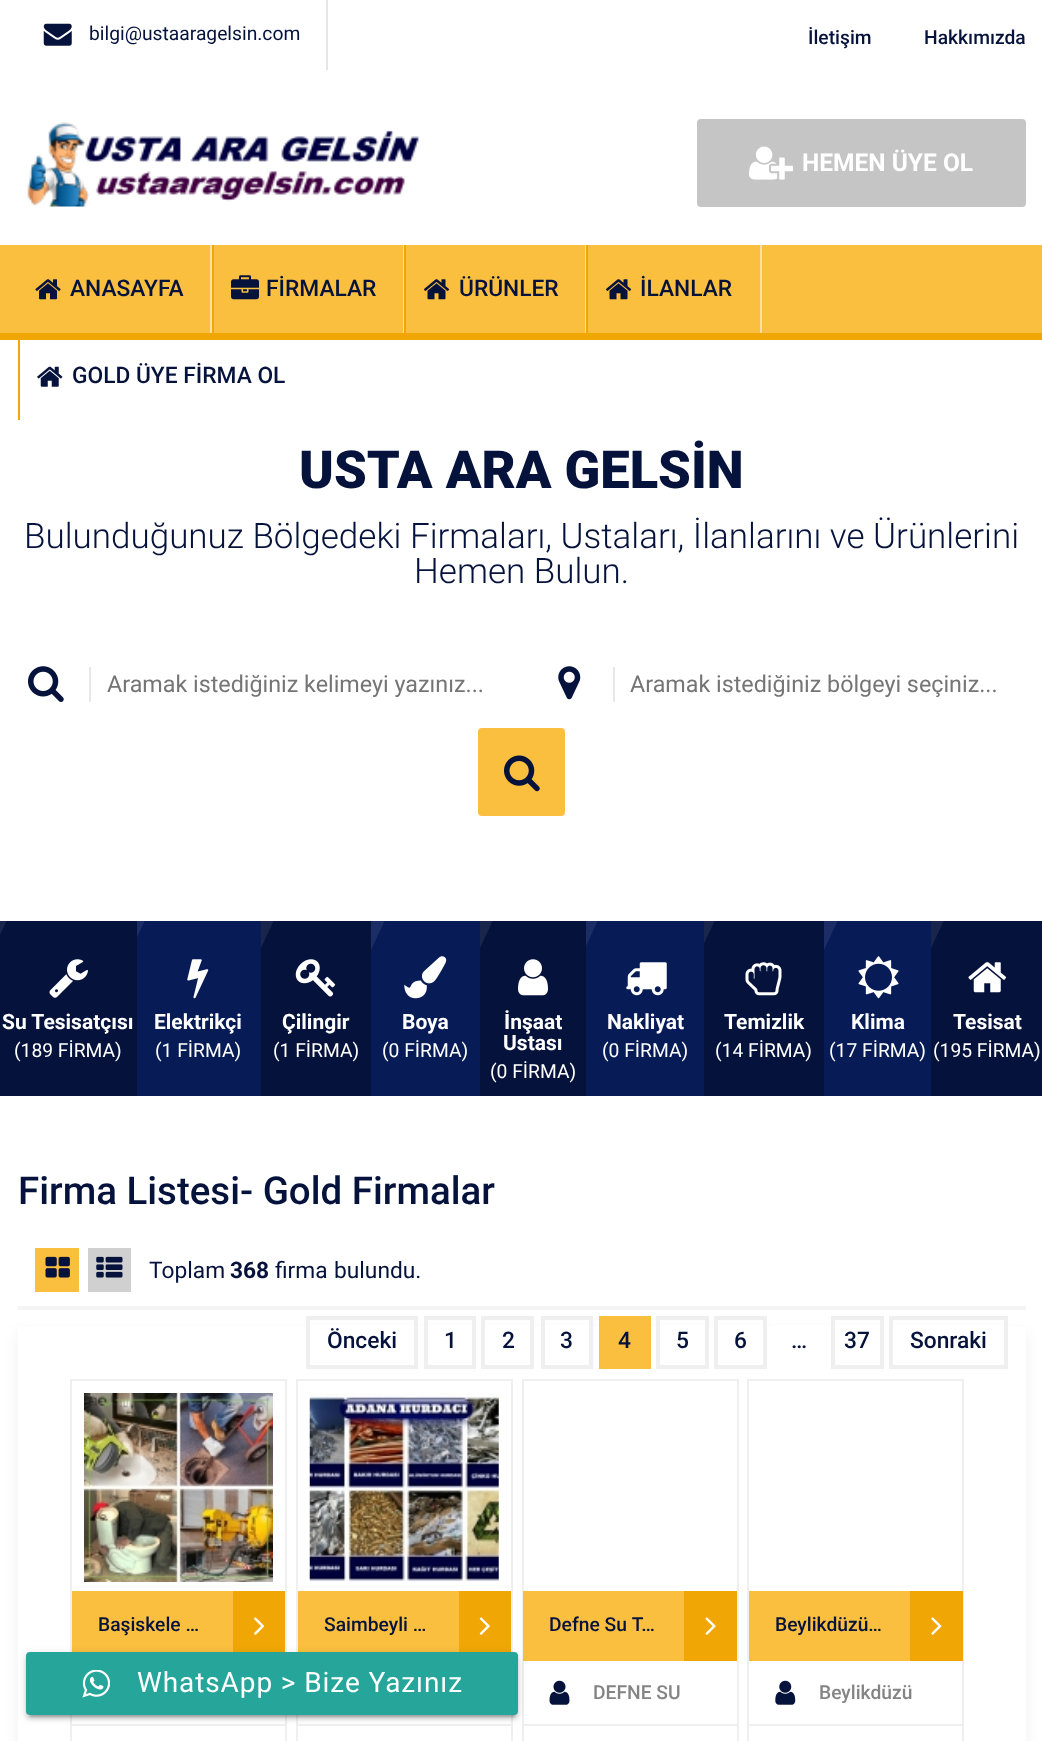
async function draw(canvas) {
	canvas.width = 1042;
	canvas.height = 1741;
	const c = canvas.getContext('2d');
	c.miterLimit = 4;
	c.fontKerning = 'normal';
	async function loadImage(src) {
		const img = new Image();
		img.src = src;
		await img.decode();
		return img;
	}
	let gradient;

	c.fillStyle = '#fff';
	c.fillRect(0, 0, 1042, 1741);
	c.fillStyle = '#e6e6e6';
	c.fillRect(326, 0, 2, 70);
	c.drawImage(await loadImage('img1.png'), 43, 23, 29, 23);
	c.font = '19.25px Roboto';
	c.fillStyle = '#05123b';
	c.fillText('bilgi@ustaaragelsin.com', 89, 40);
	c.font = '500 19.25px Roboto';
	c.fillText('İletişim', 808, 44);
	c.fillText('Hakkımızda', 924, 44);
	c.drawImage(await loadImage('img2.png'), 27, 122, 393, 85);
	c.fillStyle = '#c5c5c5';
	c.beginPath();
	c.roundRect(697, 119, 329, 88, 4);
	c.fill();
	c.drawImage(await loadImage('img3.png'), 749, 146, 44, 34);
	c.font = 'bold 24.5px Roboto';
	c.fillStyle = '#fff';
	c.fillText('HEMEN ÜYE OL', 802, 171);
	for (const [x, y, w, h, color] of [
		[0, 245, 1042, 88, '#fabf3f'],
		[0, 333, 1042, 7, '#f0a706'],
		[210, 245, 2, 88, '#fde0a2'],
	]) {
		c.fillStyle = color;
		c.fillRect(x, y, w, h);
	}
	c.drawImage(await loadImage('img4.png'), 35, 279, 26, 21);
	c.font = '500 22.75px Roboto';
	c.fillStyle = '#05123b';
	c.fillText('ANASAYFA', 70, 296);
	c.fillStyle = '#fde0a2';
	c.fillRect(403, 245, 1, 88);
	c.fillStyle = '#f0a706';
	c.fillRect(212, 245, 2, 88);
	c.drawImage(await loadImage('img5.png'), 231, 275, 28, 25);
	c.fillStyle = '#05123b';
	c.fillText('FİRMALAR', 266, 296);
	c.fillStyle = '#fde0a2';
	c.fillRect(585, 245, 1, 88);
	c.fillStyle = '#f0a706';
	c.fillRect(404, 245, 2, 88);
	c.drawImage(await loadImage('img6.png'), 423, 279, 27, 21);
	c.fillStyle = '#05123b';
	c.fillText('ÜRÜNLER', 459, 296);
	c.fillStyle = '#fde0a2';
	c.fillRect(760, 245, 2, 88);
	c.fillStyle = '#f0a706';
	c.fillRect(586, 245, 2, 88);
	c.drawImage(await loadImage('img6.png'), 605, 279, 27, 21);
	c.fillStyle = '#05123b';
	c.fillText('İLANLAR', 640, 296);
	c.fillStyle = '#f0a706';
	c.fillRect(18, 333, 2, 87);
	c.drawImage(await loadImage('img7.png'), 37, 366, 26, 21);
	c.fillStyle = '#05123b';
	c.fillText('GOLD ÜYE FİRMA OL', 72, 383);
	c.font = '900 52.5px Roboto';
	c.fillText('USTA ARA GELSİN', 299, 488);
	c.font = '300 35px Roboto';
	c.fillText('Bulunduğunuz Bölgedeki Firmaları, Ustaları, İlanlarını ve Ürünlerini', 24, 548);
	c.fillText('Hemen Bulun.', 414, 583);
	c.fillStyle = '#e8e8e8';
	c.fillRect(89, 667, 2, 35);
	c.drawImage(await loadImage('img8.png'), 28, 666, 36, 36);
	c.font = '23.3px Roboto';
	c.fillStyle = '#757575';
	c.fillText('Aramak istediğiniz kelimeyi yazınız...', 107, 692);
	c.fillStyle = '#e8e8e8';
	c.fillRect(613, 667, 2, 35);
	c.drawImage(await loadImage('img9.png'), 558, 666, 23, 34);
	c.fillStyle = '#757575';
	c.fillText('Aramak istediğiniz bölgeyi seçiniz...', 630, 692);
	c.fillStyle = '#fabf3f';
	c.beginPath();
	c.roundRect(478, 728, 87, 88, 4);
	c.fill();
	c.drawImage(await loadImage('img10.png'), 504, 755, 36, 37);
	c.fillStyle = '#05123b';
	c.fillRect(0, 921, 137, 175);
	c.save();
	c.beginPath();
	c.rect(0, 921, 137, 175);
	c.clip();
	gradient = c.createLinearGradient(-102, 1008, -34, 1008);
	gradient.addColorStop(0, '#05123b');
	gradient.addColorStop(1, '#19254b');
	c.fillStyle = gradient;
	c.beginPath();
	c.moveTo(-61, 920);
	c.lineTo(7, 920);
	c.lineTo(-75, 1096);
	c.lineTo(-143, 1096);
	c.closePath();
	c.fill();
	c.restore();
	c.drawImage(await loadImage('img11.png'), 49, 959, 39, 39);
	c.font = 'bold 21px Roboto';
	c.fillStyle = '#fff';
	c.fillText('Su Tesisatçısı', 2, 1029);
	c.font = '19.25px Roboto';
	c.fillText('(189 FİRMA)', 14, 1057);
	c.fillStyle = '#071b57';
	c.fillRect(137, 921, 124, 175);
	c.save();
	c.beginPath();
	c.rect(137, 921, 124, 175);
	c.clip();
	gradient = c.createLinearGradient(42, 1008, 104, 1008);
	gradient.addColorStop(0, '#071b57');
	gradient.addColorStop(1, '#1b2d64');
	c.fillStyle = gradient;
	c.beginPath();
	c.moveTo(83, 920);
	c.lineTo(145, 920);
	c.lineTo(64, 1096);
	c.lineTo(1, 1096);
	c.closePath();
	c.fill();
	c.restore();
	c.drawImage(await loadImage('img12.png'), 187, 959, 22, 40);
	c.font = 'bold 21px Roboto';
	c.fillStyle = '#fff';
	c.fillText('Elektrikçi', 154, 1029);
	c.font = '19.25px Roboto';
	c.fillText('(1 FİRMA)', 155, 1057);
	c.fillStyle = '#05123b';
	c.fillRect(261, 921, 110, 175);
	c.save();
	c.beginPath();
	c.rect(261, 921, 110, 175);
	c.clip();
	gradient = c.createLinearGradient(178, 1008, 233, 1008);
	gradient.addColorStop(0, '#05123b');
	gradient.addColorStop(1, '#19254b');
	c.fillStyle = gradient;
	c.beginPath();
	c.moveTo(219, 920);
	c.lineTo(274, 920);
	c.lineTo(192, 1096);
	c.lineTo(137, 1096);
	c.closePath();
	c.fill();
	c.restore();
	c.drawImage(await loadImage('img13.png'), 295, 959, 41, 38);
	c.font = 'bold 21px Roboto';
	c.fillStyle = '#fff';
	c.fillText('Çilingir', 282, 1029);
	c.font = '19.25px Roboto';
	c.fillText('(1 FİRMA)', 273, 1057);
	c.fillStyle = '#071b57';
	c.fillRect(371, 921, 109, 175);
	c.save();
	c.beginPath();
	c.rect(371, 921, 109, 175);
	c.clip();
	gradient = c.createLinearGradient(290, 1008, 344, 1008);
	gradient.addColorStop(0, '#071b57');
	gradient.addColorStop(1, '#1b2d64');
	c.fillStyle = gradient;
	c.beginPath();
	c.moveTo(331, 920);
	c.lineTo(385, 920);
	c.lineTo(303, 1096);
	c.lineTo(250, 1096);
	c.closePath();
	c.fill();
	c.restore();
	c.drawImage(await loadImage('img14.png'), 404, 956, 43, 43);
	c.font = 'bold 21px Roboto';
	c.fillStyle = '#fff';
	c.fillText('Boya', 402, 1029);
	c.font = '19.25px Roboto';
	c.fillText('(0 FİRMA)', 382, 1057);
	c.fillStyle = '#05123b';
	c.fillRect(480, 921, 106, 175);
	c.save();
	c.beginPath();
	c.rect(480, 921, 106, 175);
	c.clip();
	gradient = c.createLinearGradient(398, 1008, 452, 1008);
	gradient.addColorStop(0, '#05123b');
	gradient.addColorStop(1, '#19254b');
	c.fillStyle = gradient;
	c.beginPath();
	c.moveTo(439, 920);
	c.lineTo(493, 920);
	c.lineTo(411, 1096);
	c.lineTo(357, 1096);
	c.closePath();
	c.fill();
	c.restore();
	c.drawImage(await loadImage('img15.png'), 518, 959, 30, 37);
	c.font = 'bold 21px Roboto';
	c.fillStyle = '#fff';
	c.fillText('İnşaat', 504, 1029);
	c.fillText('Ustası', 503, 1050);
	c.font = '19.25px Roboto';
	c.fillText('(0 FİRMA)', 490, 1078);
	c.fillStyle = '#071b57';
	c.fillRect(586, 921, 118, 175);
	c.save();
	c.beginPath();
	c.rect(586, 921, 118, 175);
	c.clip();
	gradient = c.createLinearGradient(499, 1008, 557, 1008);
	gradient.addColorStop(0, '#071b57');
	gradient.addColorStop(1, '#1b2d64');
	c.fillStyle = gradient;
	c.beginPath();
	c.moveTo(539, 920);
	c.lineTo(598, 920);
	c.lineTo(517, 1096);
	c.lineTo(458, 1096);
	c.closePath();
	c.fill();
	c.restore();
	c.drawImage(await loadImage('img16.png'), 626, 962, 41, 34);
	c.font = 'bold 21px Roboto';
	c.fillStyle = '#fff';
	c.fillText('Nakliyat', 607, 1029);
	c.font = '19.25px Roboto';
	c.fillText('(0 FİRMA)', 602, 1057);
	c.fillStyle = '#05123b';
	c.fillRect(704, 921, 120, 175);
	c.save();
	c.beginPath();
	c.rect(704, 921, 120, 175);
	c.clip();
	gradient = c.createLinearGradient(614, 1008, 674, 1008);
	gradient.addColorStop(0, '#05123b');
	gradient.addColorStop(1, '#19254b');
	c.fillStyle = gradient;
	c.beginPath();
	c.moveTo(655, 920);
	c.lineTo(715, 920);
	c.lineTo(633, 1096);
	c.lineTo(574, 1096);
	c.closePath();
	c.fill();
	c.restore();
	c.drawImage(await loadImage('img17.png'), 745, 962, 37, 34);
	c.font = 'bold 21px Roboto';
	c.fillStyle = '#fff';
	c.fillText('Temizlik', 724, 1029);
	c.font = '19.25px Roboto';
	c.fillText('(14 FİRMA)', 715, 1057);
	c.fillStyle = '#071b57';
	c.fillRect(824, 921, 107, 175);
	c.save();
	c.beginPath();
	c.rect(824, 921, 107, 175);
	c.clip();
	gradient = c.createLinearGradient(743, 1008, 797, 1008);
	gradient.addColorStop(0, '#071b57');
	gradient.addColorStop(1, '#1b2d64');
	c.fillStyle = gradient;
	c.beginPath();
	c.moveTo(784, 920);
	c.lineTo(838, 920);
	c.lineTo(756, 1096);
	c.lineTo(702, 1096);
	c.closePath();
	c.fill();
	c.restore();
	c.drawImage(await loadImage('img18.png'), 858, 956, 41, 43);
	c.font = 'bold 21px Roboto';
	c.fillStyle = '#fff';
	c.fillText('Klima', 851, 1029);
	c.font = '19.25px Roboto';
	c.fillText('(17 FİRMA)', 829, 1057);
	c.fillStyle = '#05123b';
	c.fillRect(931, 921, 111, 175);
	c.save();
	c.beginPath();
	c.rect(931, 921, 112, 175);
	c.clip();
	gradient = c.createLinearGradient(848, 1008, 904, 1008);
	gradient.addColorStop(0, '#05123b');
	gradient.addColorStop(1, '#19254b');
	c.fillStyle = gradient;
	c.beginPath();
	c.moveTo(889, 920);
	c.lineTo(944, 920);
	c.lineTo(863, 1096);
	c.lineTo(807, 1096);
	c.closePath();
	c.fill();
	c.restore();
	c.drawImage(await loadImage('img19.png'), 968, 962, 39, 31);
	c.font = 'bold 21px Roboto';
	c.fillStyle = '#fff';
	c.fillText('Tesisat', 953, 1029);
	c.font = '19.25px Roboto';
	c.fillText('(195 FİRMA)', 933, 1057);
	c.font = '500 38.5px Roboto';
	c.fillStyle = '#05123b';
	c.fillText('Firma Listesi- Gold Firmalar', 18, 1204);
	c.fillStyle = '#f4f4f4';
	c.fillRect(18, 1306, 1008, 4);
	c.fillStyle = '#fabf3f';
	c.fillRect(35, 1248, 44, 44);
	c.drawImage(await loadImage('img20.png'), 45, 1256, 25, 22);
	c.fillStyle = '#d0d0d0';
	c.fillRect(88, 1248, 43, 44);
	c.drawImage(await loadImage('img21.png'), 96, 1256, 27, 22);
	c.font = '22.75px Roboto';
	c.fillStyle = '#05123b';
	c.fillText('Toplam', 149, 1278);
	c.font = 'bold 22.75px Roboto';
	c.fillText('368', 230, 1278);
	c.font = '22.75px Roboto';
	c.fillText('firma', 275, 1278);
	c.fillText('bulundu.', 334, 1278);
	c.fillStyle = '#0000000f';
	c.filter = 'blur(7px)';
	c.beginPath();
	c.rect(18, 1332, 1008, 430);
	c.fill();
	c.filter = 'none';
	c.fillStyle = '#fff';
	c.fillRect(310, 1325, 104, 2);
	c.fillRect(18, 1327, 1008, 414);
	c.strokeStyle = '#efefef';
	c.lineWidth = 4;
	c.strokeRect(308, 1318, 108, 49);
	c.font = '500 22.75px Roboto';
	c.fillStyle = '#05123b';
	c.fillText('Önceki', 327, 1348);
	c.fillStyle = '#fff';
	c.fillRect(428, 1325, 44, 2);
	c.strokeRect(426, 1318, 48, 49);
	c.fillStyle = '#05123b';
	c.fillText('1', 444, 1348);
	c.fillStyle = '#fff';
	c.fillRect(485, 1325, 45, 2);
	c.strokeRect(483, 1318, 49, 49);
	c.fillStyle = '#05123b';
	c.fillText('2', 502, 1348);
	c.fillStyle = '#fff';
	c.fillRect(545, 1325, 44, 2);
	c.strokeRect(543, 1318, 48, 49);
	c.fillStyle = '#05123b';
	c.fillText('3', 560, 1348);
	c.fillStyle = '#fabf3f';
	c.fillRect(599, 1316, 52, 53);
	c.fillStyle = '#05123b';
	c.fillText('4', 618, 1348);
	c.fillStyle = '#fff';
	c.fillRect(660, 1325, 45, 2);
	c.strokeRect(658, 1318, 49, 49);
	c.fillStyle = '#05123b';
	c.fillText('5', 676, 1348);
	c.fillStyle = '#fff';
	c.fillRect(718, 1325, 45, 2);
	c.strokeRect(716, 1318, 49, 49);
	c.fillStyle = '#05123b';
	c.fillText('6', 734, 1348);
	c.fillStyle = '#fff';
	c.fillRect(774, 1325, 52, 2);
	c.fillStyle = '#05123b';
	c.fillText('…', 791, 1348);
	c.fillStyle = '#fff';
	c.fillRect(835, 1325, 45, 2);
	c.strokeRect(833, 1318, 49, 49);
	c.fillStyle = '#05123b';
	c.fillText('37', 844, 1348);
	c.fillStyle = '#fff';
	c.fillRect(893, 1325, 111, 2);
	c.strokeRect(891, 1318, 115, 49);
	c.fillStyle = '#05123b';
	c.fillText('Sonraki', 910, 1348);
	c.lineWidth = 2;
	c.strokeRect(71, 1380, 215, 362);
	c.drawImage(await loadImage('img22.png'), 84, 1393, 189, 189);
	c.fillStyle = '#fabf3f';
	c.fillRect(72, 1591, 161, 61);
	c.font = '500 19.25px Roboto';
	c.fillStyle = '#05123b';
	c.fillText('Başiskele …', 98, 1631);
	c.fillStyle = '#f0a706';
	c.fillRect(233, 1591, 52, 61);
	c.drawImage(await loadImage('img23.png'), 254, 1617, 11, 18);
	c.fillStyle = '#efefef';
	c.fillRect(72, 1724, 213, 2);
	c.strokeRect(297, 1380, 215, 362);
	c.drawImage(await loadImage('img24.png'), 309, 1393, 190, 189);
	c.fillStyle = '#fabf3f';
	c.fillRect(298, 1591, 161, 61);
	c.fillStyle = '#05123b';
	c.fillText('Saimbeyli …', 324, 1631);
	c.fillStyle = '#f0a706';
	c.fillRect(459, 1591, 52, 61);
	c.drawImage(await loadImage('img25.png'), 479, 1617, 11, 18);
	c.fillStyle = '#efefef';
	c.fillRect(298, 1724, 213, 2);
	c.strokeRect(523, 1380, 215, 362);
	c.fillStyle = '#fabf3f';
	c.fillRect(523, 1591, 161, 70);
	c.fillStyle = '#05123b';
	c.fillText('Defne Su T…', 549, 1631);
	c.fillStyle = '#f0a706';
	c.fillRect(684, 1591, 53, 70);
	c.drawImage(await loadImage('img26.png'), 705, 1617, 11, 18);
	c.fillStyle = '#efefef';
	c.fillRect(523, 1724, 214, 2);
	c.drawImage(await loadImage('img27.png'), 549, 1680, 21, 25);
	c.fillStyle = '#848484';
	c.fillText('DEFNE SU', 593, 1699);
	c.strokeRect(748, 1380, 215, 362);
	c.fillStyle = '#fabf3f';
	c.fillRect(749, 1591, 161, 70);
	c.fillStyle = '#05123b';
	c.fillText('Beylikdüzü…', 775, 1631);
	c.fillStyle = '#f0a706';
	c.fillRect(910, 1591, 53, 70);
	c.drawImage(await loadImage('img28.png'), 931, 1617, 11, 18);
	c.fillStyle = '#efefef';
	c.fillRect(749, 1724, 214, 2);
	c.drawImage(await loadImage('img29.png'), 775, 1680, 21, 25);
	c.fillStyle = '#848484';
	c.fillText('Beylikdüzü', 819, 1699);
	c.fillStyle = '#00000033';
	c.filter = 'blur(1px)';
	c.beginPath();
	c.rect(30, 1661, 485, 56);
	c.fill();
	c.filter = 'none';
	c.fillStyle = '#0000001f';
	c.filter = 'blur(4.5px)';
	c.beginPath();
	c.roundRect(26, 1654, 492, 63, 4);
	c.fill();
	c.filter = 'none';
	c.fillStyle = '#00000024';
	c.filter = 'blur(2px)';
	c.beginPath();
	c.roundRect(26, 1656, 492, 63, 4);
	c.fill();
	c.filter = 'none';
	c.fillStyle = '#26a69a';
	c.beginPath();
	c.roundRect(26, 1652, 492, 63, 4);
	c.fill();
	c.drawImage(await loadImage('img30.png'), 82, 1670, 28, 28);
	c.letterSpacing = '0.9px';
	c.font = '28px Roboto';
	c.fillStyle = '#fff';
	c.fillText('WhatsApp > Bize Yazınız', 137, 1692);
}

draw(document.querySelector('canvas'));
